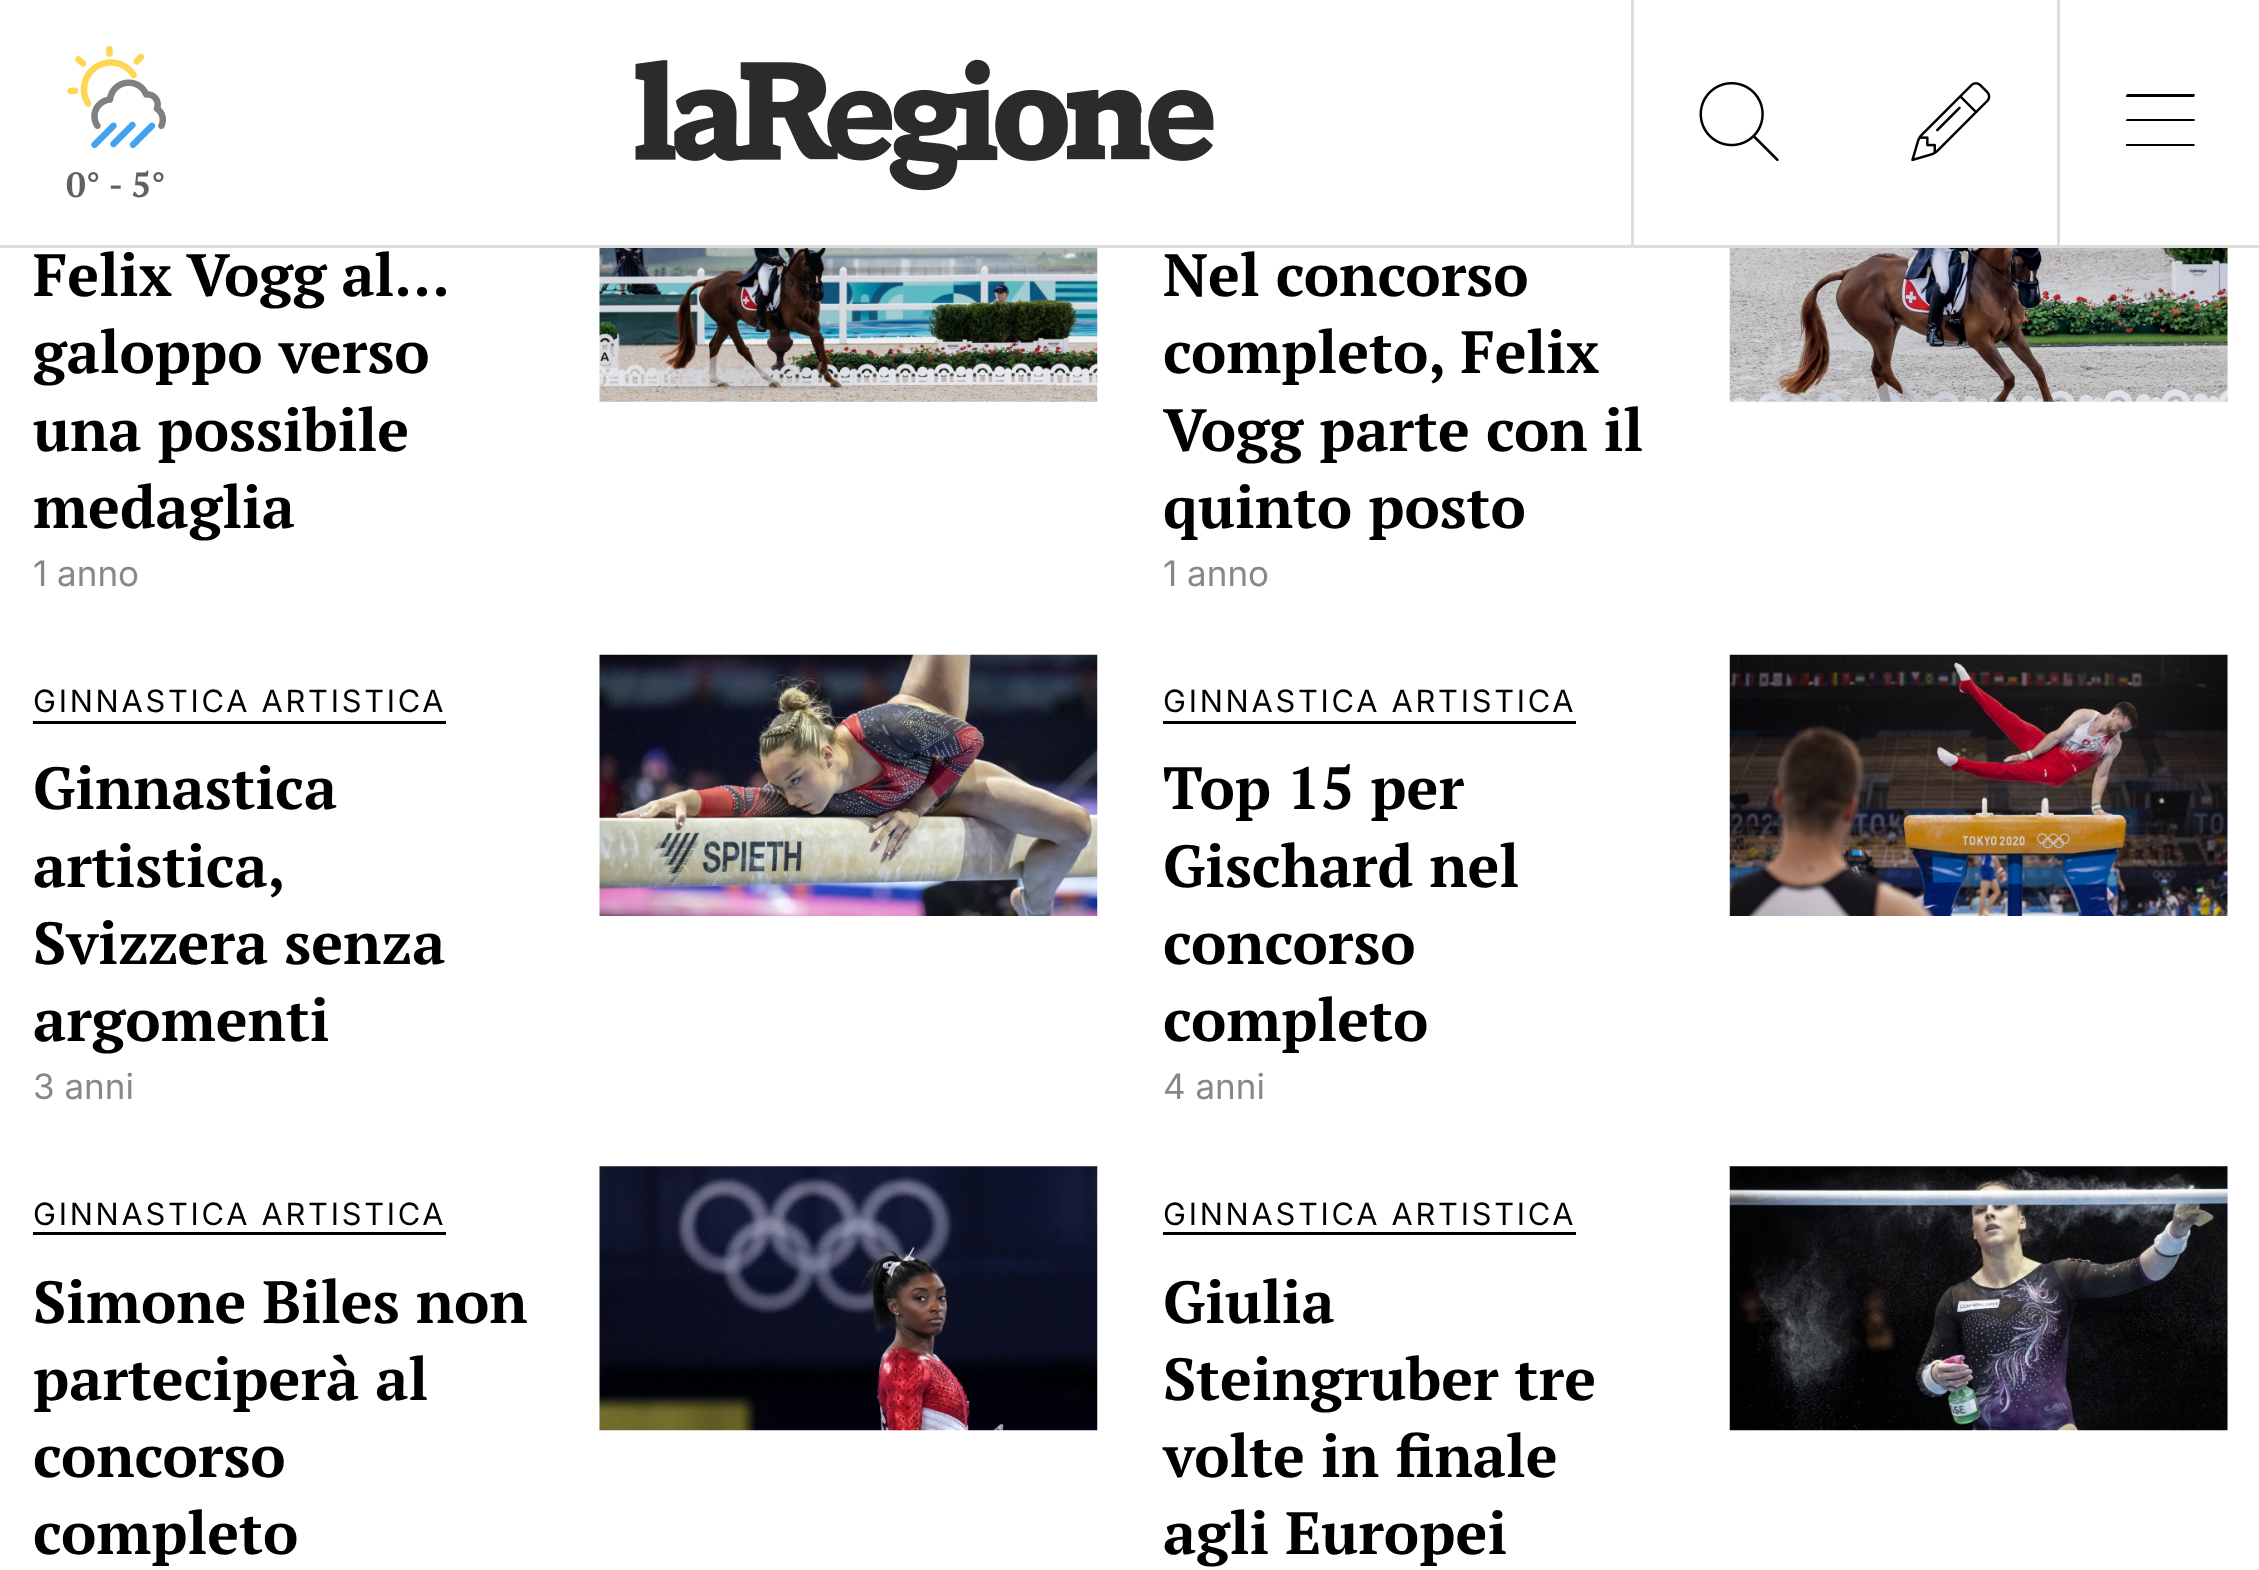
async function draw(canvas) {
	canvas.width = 2259;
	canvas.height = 1570;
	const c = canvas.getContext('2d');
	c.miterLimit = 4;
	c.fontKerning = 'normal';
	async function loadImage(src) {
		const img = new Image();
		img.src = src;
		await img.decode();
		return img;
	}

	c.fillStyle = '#fff';
	c.fillRect(0, 0, 2259, 1570);
	c.fillStyle = '#ddd';
	c.fillRect(0, 245, 2259, 3);
	c.drawImage(await loadImage('img1.png'), 67, 45, 100, 103);
	c.font = 'bold 35px PT Serif';
	c.fillStyle = '#616161';
	c.fillText('0° - 5°', 66, 197);
	c.drawImage(await loadImage('img2.png'), 635, 59, 579, 132);
	c.fillStyle = '#ddd';
	c.fillRect(1631, 0, 3, 248);
	c.drawImage(await loadImage('img3.png'), 1699, 81, 80, 81);
	c.drawImage(await loadImage('img4.png'), 1911, 82, 80, 80);
	c.fillRect(2057, 0, 3, 248);
	c.fillStyle = '#000';
	c.beginPath();
	c.moveTo(2126, 96);
	c.lineTo(2127, 94);
	c.lineTo(2194, 94);
	c.bezierCurveTo(2195, 94, 2195, 96, 2194, 97);
	c.lineTo(2126, 97);
	c.closePath();
	c.moveTo(2126, 120);
	c.lineTo(2127, 119);
	c.lineTo(2194, 119);
	c.bezierCurveTo(2195, 119, 2195, 121, 2194, 121);
	c.lineTo(2126, 121);
	c.closePath();
	c.moveTo(2195, 145);
	c.lineTo(2194, 146);
	c.lineTo(2127, 146);
	c.bezierCurveTo(2126, 146, 2125, 144, 2127, 144);
	c.lineTo(2194, 144);
	c.closePath();
	c.fill();
	c.wordSpacing = '-1px';
	c.font = 'bold 59.5px PT Serif';
	c.fillText('Felix Vogg al...', 33, 296);
	c.wordSpacing = '0px';
	for (const [text, x, y] of [
		['galoppo verso', 33, 373],
		['una possibile', 33, 451],
		['medaglia', 33, 528],
	]) {
		c.fillText(text, x, y);
	}
	c.font = '35px Inter';
	c.fillStyle = '#888';
	c.fillText('1 anno', 33, 586);
	c.drawImage(await loadImage('img5.png'), 599, 248, 499, 154);
	c.font = 'bold 59.5px PT Serif';
	c.fillStyle = '#000';
	for (const [text, x, y] of [
		['Nel concorso', 1163, 296],
		['completo, Felix', 1163, 373],
		['Vogg parte con il', 1163, 451],
		['quinto posto', 1163, 528],
	]) {
		c.fillText(text, x, y);
	}
	c.font = '35px Inter';
	c.fillStyle = '#888';
	c.fillText('1 anno', 1163, 586);
	c.fillStyle = '#f5f7fa';
	c.fillRect(1730, 248, 498, 154);
	c.drawImage(await loadImage('img6.png'), 1729, 248, 499, 154);
	c.letterSpacing = '2.75px';
	c.font = '30.75px Inter';
	c.fillStyle = '#000';
	c.fillText('GINNASTICA ARTISTICA', 33, 712);
	c.fillRect(33, 721, 413, 3);
	c.letterSpacing = '0px';
	c.font = 'bold 59.5px PT Serif';
	for (const [text, x, y] of [
		['Ginnastica', 33, 809],
		['artistica,', 33, 887],
		['Svizzera senza', 33, 964],
		['argomenti', 33, 1041],
	]) {
		c.fillText(text, x, y);
	}
	c.font = '35px Inter';
	c.fillStyle = '#888';
	c.fillText('3 anni', 33, 1099);
	c.drawImage(await loadImage('img7.png'), 599, 654, 499, 262);
	c.letterSpacing = '2.75px';
	c.font = '30.75px Inter';
	c.fillStyle = '#000';
	c.fillText('GINNASTICA ARTISTICA', 1163, 712);
	c.fillRect(1163, 721, 413, 3);
	c.letterSpacing = '0px';
	c.font = 'bold 59.5px PT Serif';
	for (const [text, x, y] of [
		['Top 15 per', 1163, 809],
		['Gischard nel', 1163, 887],
		['concorso', 1163, 964],
		['completo', 1163, 1041],
	]) {
		c.fillText(text, x, y);
	}
	c.font = '35px Inter';
	c.fillStyle = '#888';
	c.fillText('4 anni', 1163, 1099);
	c.fillStyle = '#f5f7fa';
	c.fillRect(2227, 655, 1, 261);
	c.drawImage(await loadImage('img8.png'), 1729, 654, 499, 262);
	c.letterSpacing = '2.75px';
	c.font = '30.75px Inter';
	c.fillStyle = '#000';
	c.fillText('GINNASTICA ARTISTICA', 33, 1225);
	c.fillRect(33, 1232, 413, 3);
	c.letterSpacing = '0px';
	c.font = 'bold 59.5px PT Serif';
	for (const [text, x, y] of [
		['Simone Biles non', 33, 1323],
		['parteciperà al', 33, 1400],
		['concorso', 33, 1477],
		['completo', 33, 1554],
	]) {
		c.fillText(text, x, y);
	}
	c.drawImage(await loadImage('img9.png'), 599, 1166, 499, 265);
	c.letterSpacing = '2.75px';
	c.font = '30.75px Inter';
	c.fillText('GINNASTICA ARTISTICA', 1163, 1225);
	c.fillRect(1163, 1232, 413, 3);
	c.letterSpacing = '0px';
	c.font = 'bold 59.5px PT Serif';
	for (const [text, x, y] of [
		['Giulia', 1163, 1323],
		['Steingruber tre', 1163, 1400],
		['volte in finale', 1163, 1477],
		['agli Europei', 1163, 1554],
	]) {
		c.fillText(text, x, y);
	}
	c.fillStyle = '#f5f7fa';
	c.fillRect(1730, 1166, 498, 264);
	c.drawImage(await loadImage('img10.png'), 1729, 1166, 499, 265);
}

draw(document.querySelector('canvas'));
